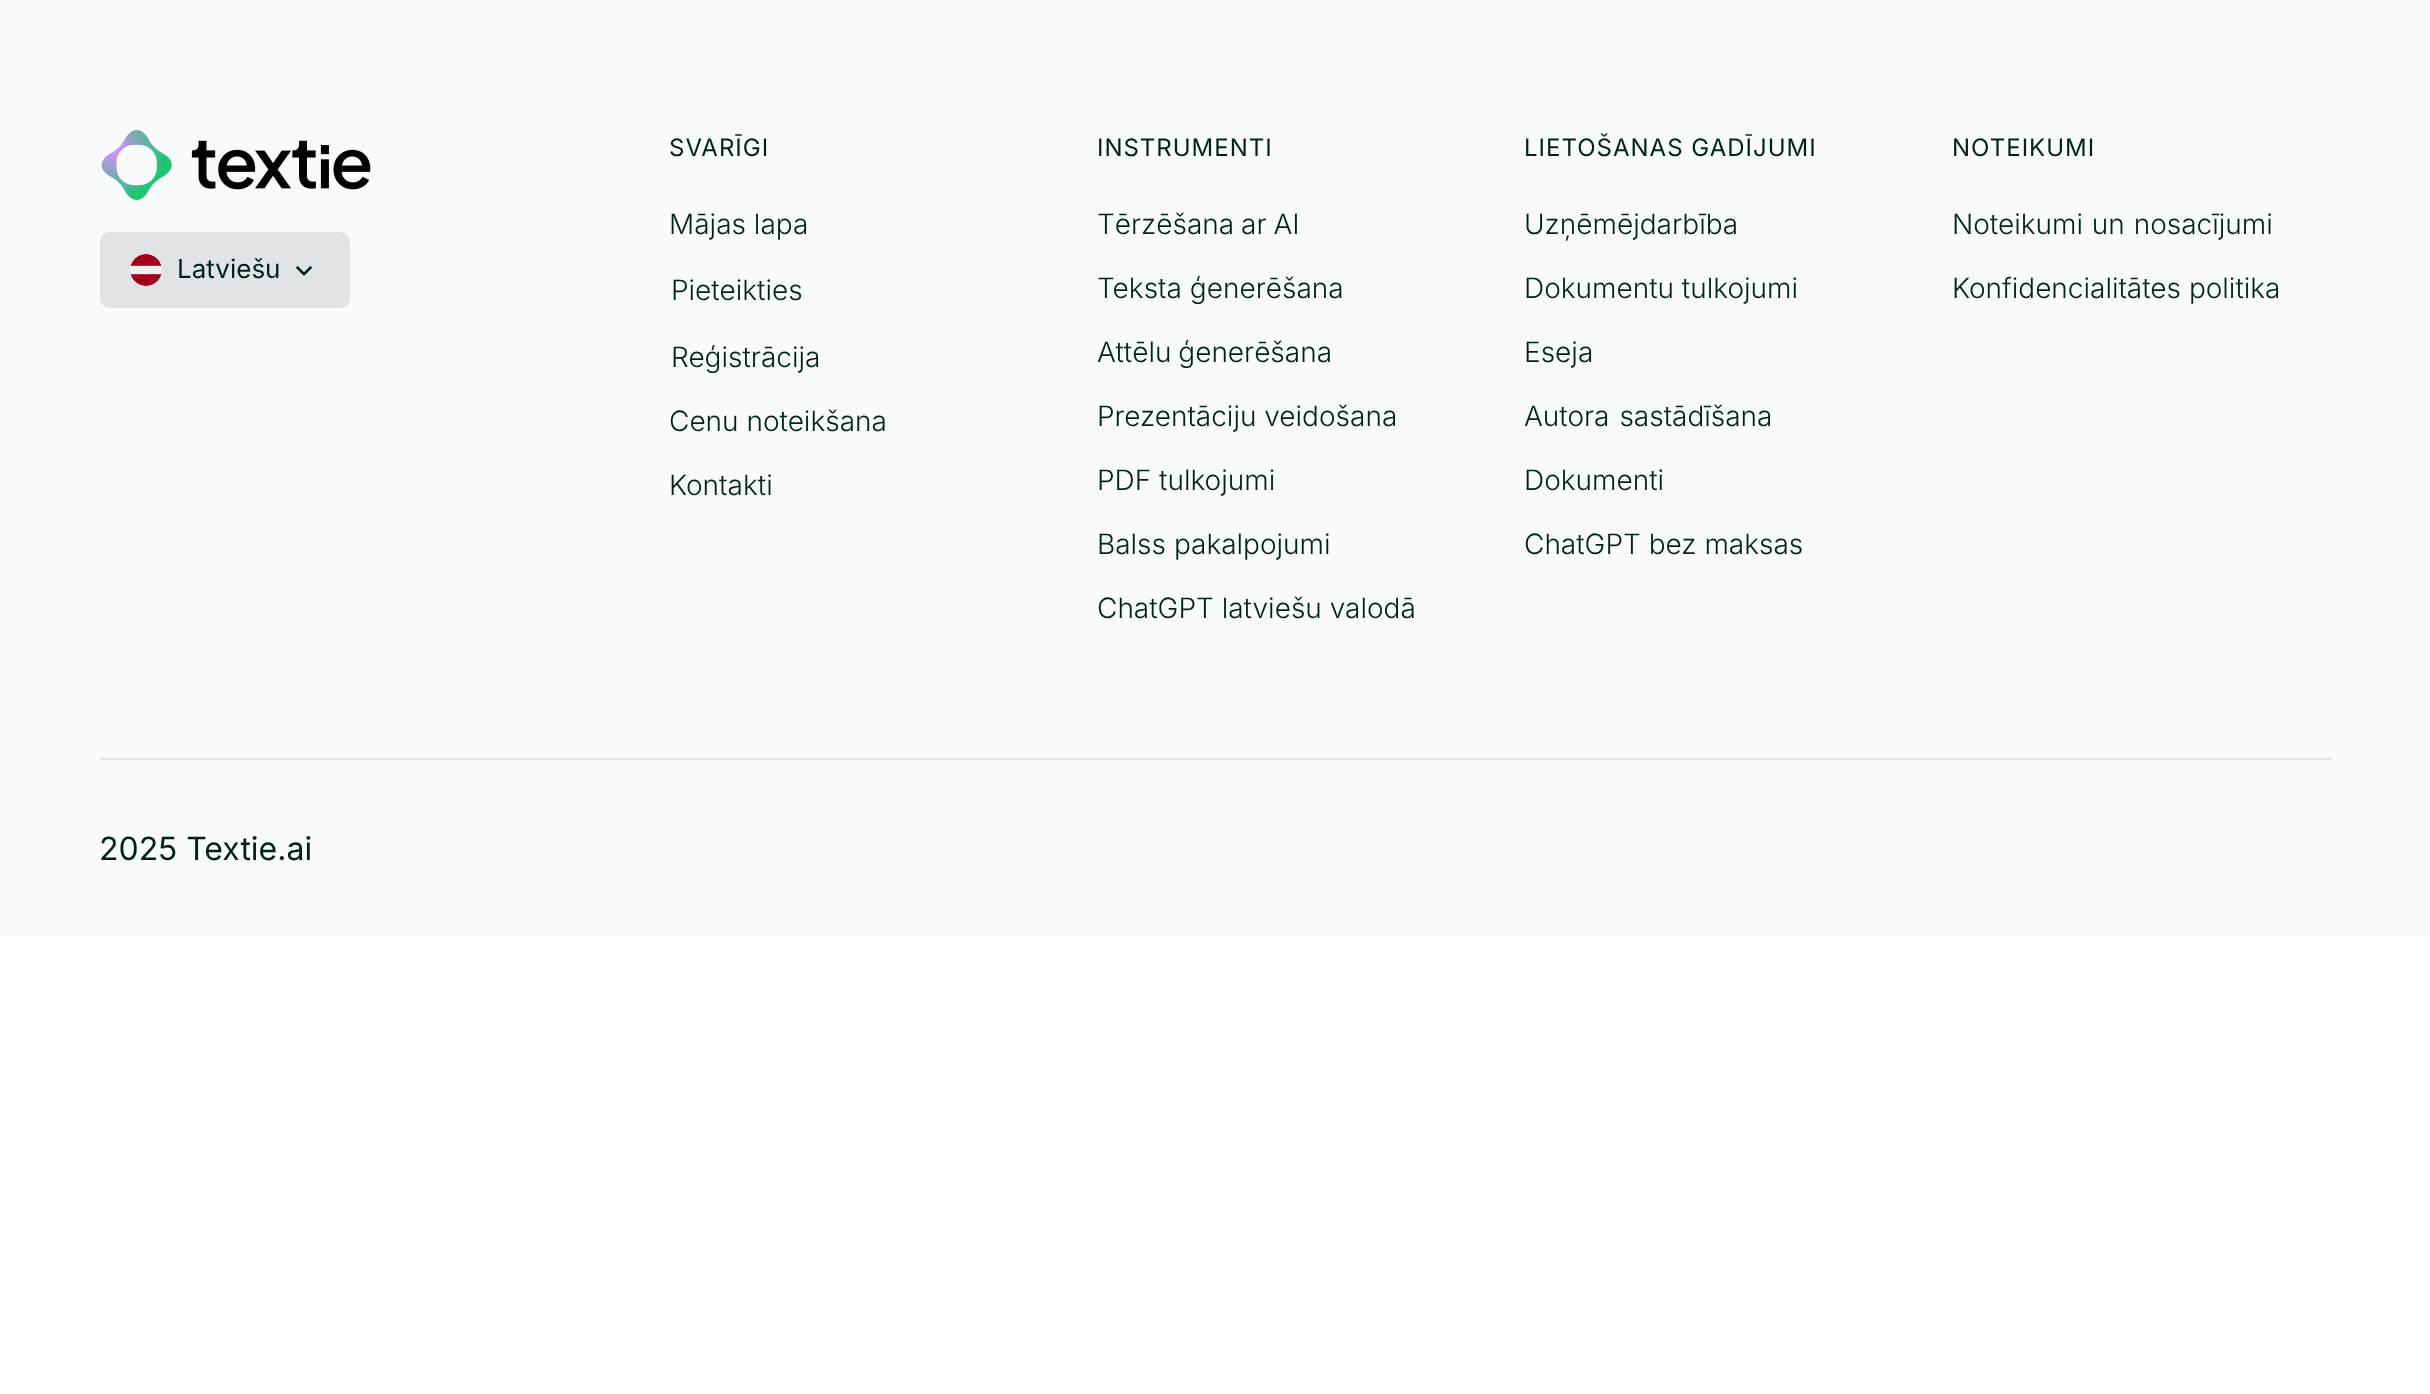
async function draw(canvas) {
	canvas.width = 2430;
	canvas.height = 1394;
	const c = canvas.getContext('2d');
	c.miterLimit = 4;
	c.fontKerning = 'normal';
	async function loadImage(src) {
		const img = new Image();
		img.src = src;
		await img.decode();
		return img;
	}

	c.fillStyle = '#fff';
	c.fillRect(0, 0, 2430, 1394);
	c.fillStyle = '#f9fafc';
	c.fillRect(0, 0, 2430, 936);
	c.drawImage(await loadImage('img1.png'), 101, 130, 270, 70);
	c.fillStyle = '#e0e4e6';
	c.beginPath();
	c.roundRect(100, 232, 250, 76, 10);
	c.fill();
	c.drawImage(await loadImage('img2.png'), 130, 254, 32, 32);
	c.font = '26px Inter';
	c.fillStyle = '#00221c';
	c.fillText('Latviešu', 177, 278);
	c.drawImage(await loadImage('img3.png'), 296, 266, 16, 10);
	c.letterSpacing = '1px';
	c.font = '24px Inter';
	c.fillText('SVARĪGI', 669, 156);
	c.letterSpacing = '0px';
	c.font = '300 28px Inter';
	for (const [text, x, y] of [
		['Mājas lapa', 669, 234],
		['Pieteikties', 671, 300],
		['Reģistrācija', 671, 367],
		['Cenu noteikšana', 669, 431],
		['Kontakti', 669, 495],
	]) {
		c.fillText(text, x, y);
	}
	c.letterSpacing = '1px';
	c.font = '24px Inter';
	c.fillText('INSTRUMENTI', 1097, 156);
	c.letterSpacing = '0px';
	c.wordSpacing = '-1px';
	c.font = '300 28px Inter';
	c.fillText('Tērzēšana ar AI', 1097, 234);
	c.wordSpacing = '0px';
	c.fillText('Teksta ģenerēšana', 1097, 298);
	c.wordSpacing = '-1px';
	c.fillText('Attēlu ģenerēšana', 1097, 362);
	c.wordSpacing = '0px';
	for (const [text, x, y] of [
		['Prezentāciju veidošana', 1097, 426],
		['PDF tulkojumi', 1097, 490],
		['Balss pakalpojumi', 1097, 554],
		['ChatGPT latviešu valodā', 1097, 618],
	]) {
		c.fillText(text, x, y);
	}
	c.letterSpacing = '1px';
	c.font = '24px Inter';
	c.fillText('LIETOŠANAS GADĪJUMI', 1524, 156);
	c.letterSpacing = '0px';
	c.font = '300 28px Inter';
	for (const [text, x, y] of [
		['Uzņēmējdarbība', 1524, 234],
		['Dokumentu tulkojumi', 1524, 298],
		['Eseja', 1524, 362],
	]) {
		c.fillText(text, x, y);
	}
	c.wordSpacing = '2px';
	c.fillText('Autora sastādīšana', 1524, 426);
	c.wordSpacing = '0px';
	c.fillText('Dokumenti', 1524, 490);
	c.fillText('ChatGPT bez maksas', 1524, 554);
	c.letterSpacing = '1px';
	c.font = '24px Inter';
	c.fillText('NOTEIKUMI', 1952, 156);
	c.letterSpacing = '0px';
	c.wordSpacing = '1px';
	c.font = '300 28px Inter';
	c.fillText('Noteikumi un nosacījumi', 1952, 234);
	c.wordSpacing = '0px';
	c.fillText('Konfidencialitātes politika', 1952, 298);
	c.fillStyle = '#e0e4e6';
	c.fillRect(100, 758, 2232, 2);
	c.font = '32px Inter';
	c.fillStyle = '#00221c';
	c.fillText('2025 Textie.ai', 99, 860);
}

draw(document.querySelector('canvas'));
